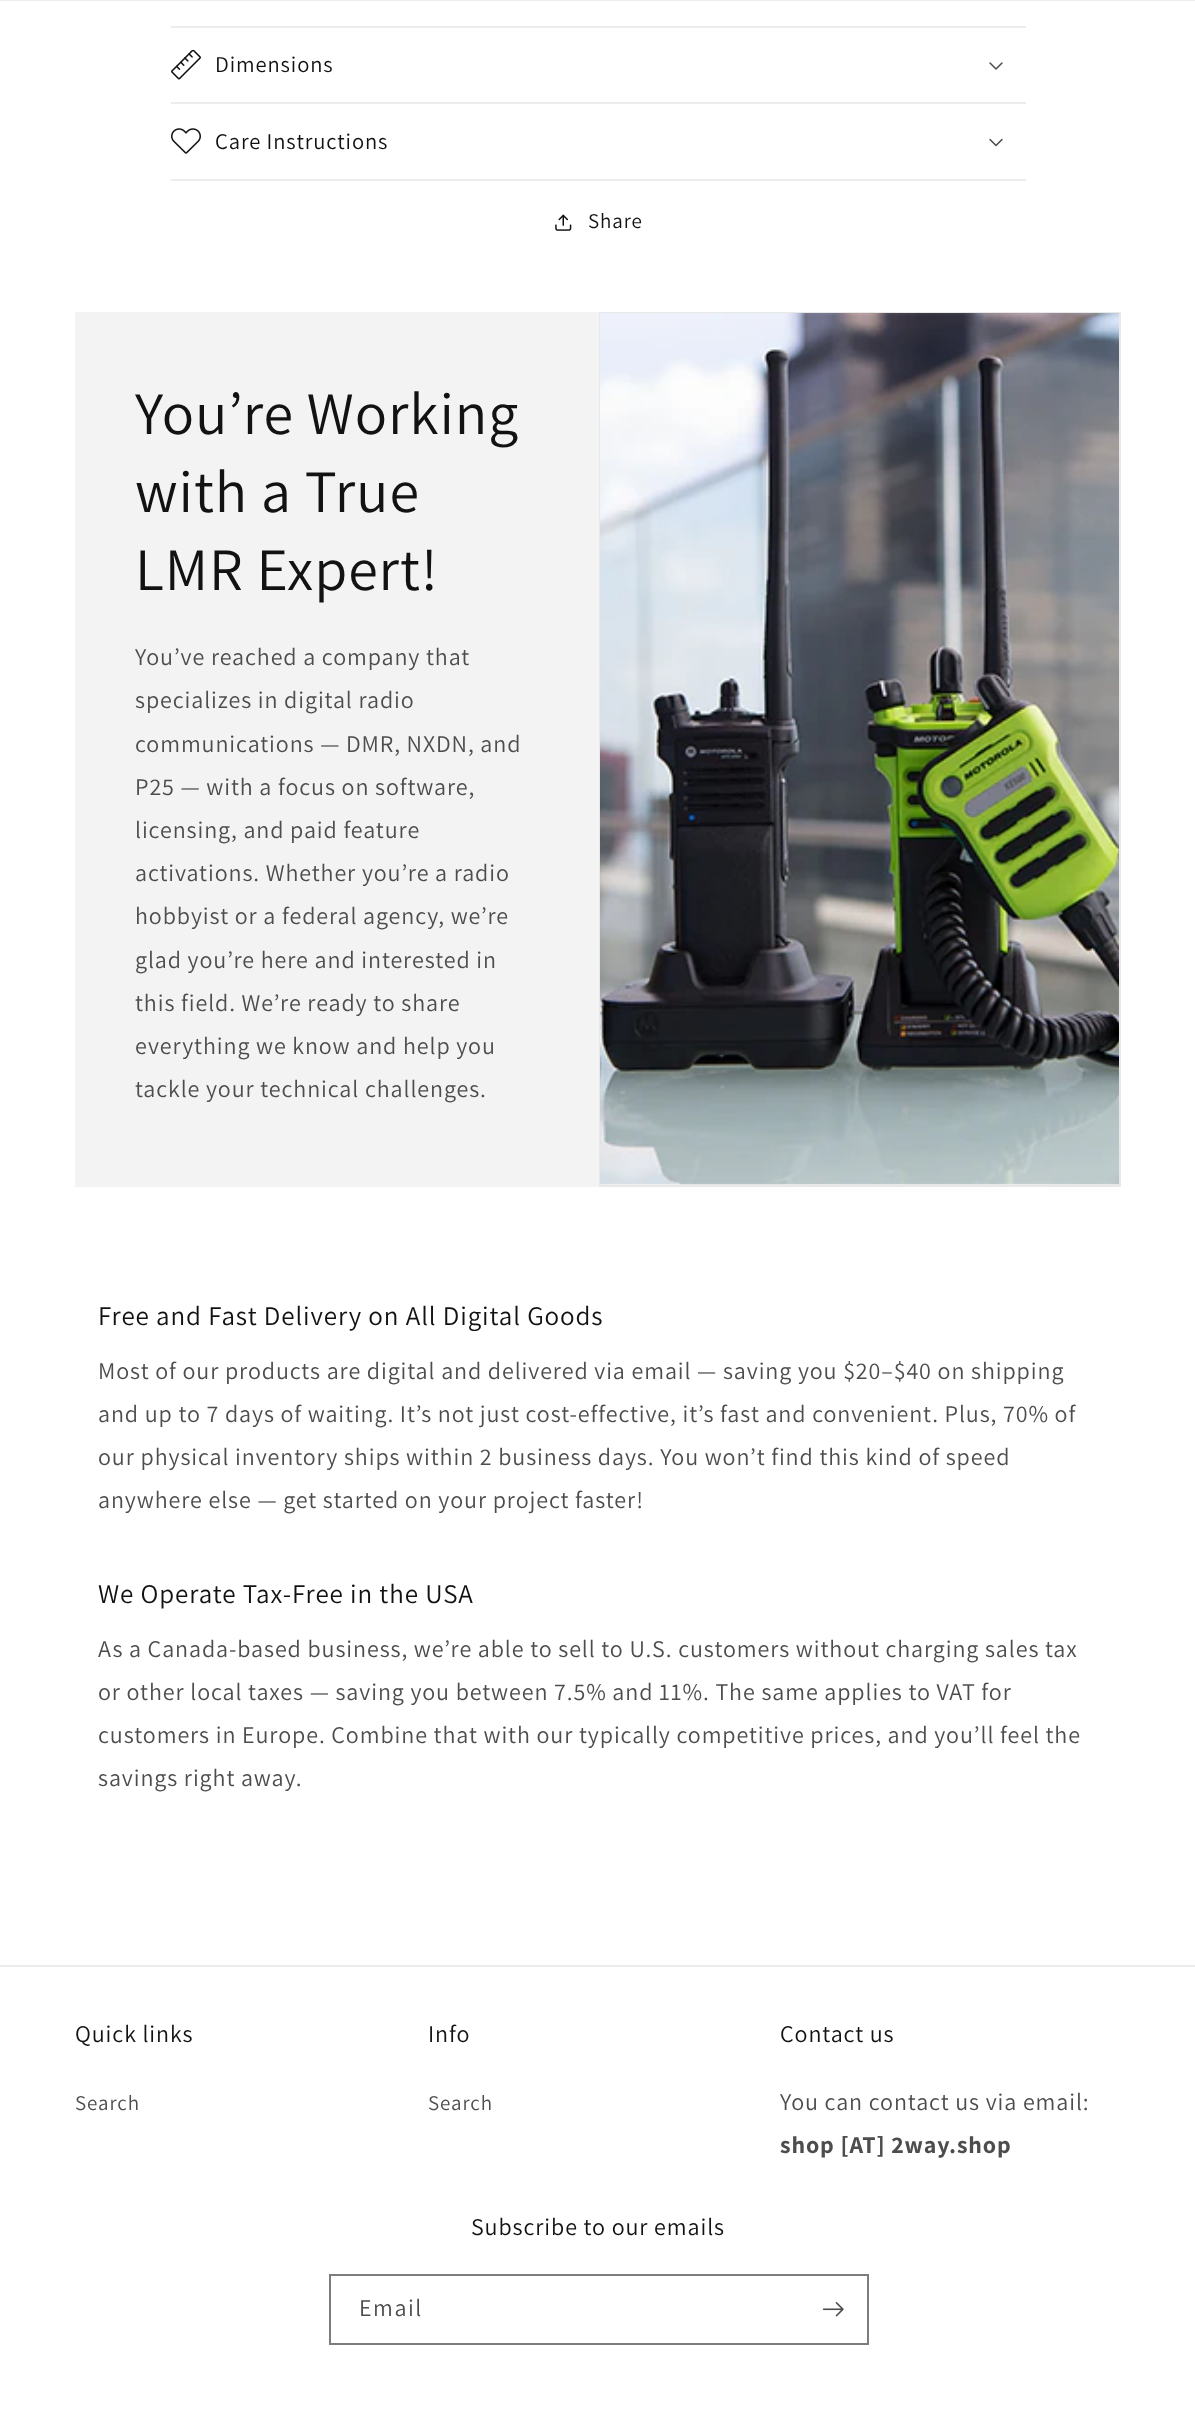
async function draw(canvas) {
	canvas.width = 1195;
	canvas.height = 2420;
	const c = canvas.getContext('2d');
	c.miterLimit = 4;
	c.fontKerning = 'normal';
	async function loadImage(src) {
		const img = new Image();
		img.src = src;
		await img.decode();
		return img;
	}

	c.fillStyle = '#fff';
	c.fillRect(0, 0, 1195, 2420);
	for (const [x, y, w, h, color] of [
		[0, 0, 1195, 1, '#ececec'],
		[171, 26, 855, 2, '#ececec'],
		[171, 102, 855, 2, '#ececec'],
	]) {
		c.fillStyle = color;
		c.fillRect(x, y, w, h);
	}
	c.drawImage(await loadImage('img1.png'), 171, 50, 30, 30);
	c.letterSpacing = '0.9px';
	c.font = '22.5px Assistant';
	c.fillStyle = '#121212';
	c.fillText('Dimensions', 215, 72);
	c.drawImage(await loadImage('img2.png'), 989, 62, 14, 8);
	c.fillStyle = '#ececec';
	c.fillRect(171, 179, 855, 2);
	c.drawImage(await loadImage('img3.png'), 171, 128, 30, 26);
	c.fillStyle = '#121212';
	c.fillText('Care Instructions', 215, 149);
	c.drawImage(await loadImage('img4.png'), 989, 138, 14, 9);
	c.drawImage(await loadImage('img5.png'), 555, 214, 17, 17);
	c.font = '21px Assistant';
	c.fillText('Share', 588, 228);
	c.fillStyle = '#f3f3f3';
	c.fillRect(75, 312, 524, 875);
	c.font = '60px Assistant';
	c.fillStyle = '#121212';
	for (const [text, x, y] of [
		['You’re Working', 135, 434],
		['with a True', 135, 512],
		['LMR Expert!', 135, 590],
	]) {
		c.fillText(text, x, y);
	}
	c.font = '24px Assistant';
	c.fillStyle = '#4d4d4d';
	for (const [text, x, y] of [
		['You’ve reached a company that', 135, 665],
		['specializes in digital radio', 135, 708],
		['communications — DMR, NXDN, and', 135, 752],
		['P25 — with a focus on software,', 135, 795],
		['licensing, and paid feature', 135, 838],
		['activations. Whether you’re a radio', 135, 881],
		['hobbyist or a federal agency, we’re', 135, 924],
		['glad you’re here and interested in', 135, 968],
		['this field. We’re ready to share', 135, 1011],
		['everything we know and help you', 135, 1054],
		['tackle your technical challenges.', 135, 1097],
	]) {
		c.fillText(text, x, y);
	}
	c.fillStyle = '#f3f3f3';
	c.beginPath();
	c.rect(600, 313, 520, 873);
	c.fill();
	c.strokeStyle = '#e8e8e8';
	c.lineWidth = 2;
	c.stroke();
	c.drawImage(await loadImage('img6.png'), 600, 313, 519, 872);
	c.font = '27px Assistant';
	c.fillStyle = '#121212';
	c.fillText('Free and Fast Delivery on All Digital Goods', 98, 1325);
	c.font = '24px Assistant';
	c.fillStyle = '#4d4d4d';
	for (const [text, x, y] of [
		['Most of our products are digital and delivered via email — saving you $20–$40 on shipping', 98, 1379],
		['and up to 7 days of waiting. It’s not just cost-effective, it’s fast and convenient. Plus, 70% of', 98, 1422],
		['our physical inventory ships within 2 business days. You won’t find this kind of speed', 98, 1465],
		['anywhere else — get started on your project faster!', 98, 1508],
	]) {
		c.fillText(text, x, y);
	}
	c.font = '27px Assistant';
	c.fillStyle = '#121212';
	c.fillText('We Operate Tax-Free in the USA', 98, 1603);
	c.font = '24px Assistant';
	c.fillStyle = '#4d4d4d';
	for (const [text, x, y] of [
		['As a Canada-based business, we’re able to sell to U.S. customers without charging sales tax', 98, 1657],
		['or other local taxes — saving you between 7.5% and 11%. The same applies to VAT for', 98, 1700],
		['customers in Europe. Combine that with our typically competitive prices, and you’ll feel the', 98, 1743],
		['savings right away.', 98, 1786],
	]) {
		c.fillText(text, x, y);
	}
	c.fillStyle = '#ececec';
	c.fillRect(0, 1965, 1195, 2);
	c.fillStyle = '#121212';
	c.fillText('Quick links', 75, 2042);
	c.font = '21px Assistant';
	c.fillStyle = '#4d4d4d';
	c.fillText('Search', 75, 2110);
	c.font = '24px Assistant';
	c.fillStyle = '#121212';
	c.fillText('Info', 428, 2042);
	c.font = '21px Assistant';
	c.fillStyle = '#4d4d4d';
	c.fillText('Search', 428, 2110);
	c.font = '24px Assistant';
	c.fillStyle = '#121212';
	c.fillText('Contact us', 780, 2042);
	c.fillStyle = '#4d4d4d';
	c.fillText('You can contact us via email:', 780, 2110);
	c.font = 'bold 24px Assistant';
	c.fillText('shop [AT] 2way.shop', 780, 2153);
	c.font = '24px Assistant';
	c.fillStyle = '#121212';
	c.fillText('Subscribe to our emails', 471, 2235);
	c.strokeStyle = '#7d7d7d';
	c.strokeRect(330, 2275, 538, 69);
	c.letterSpacing = '1.5px';
	c.fillStyle = '#4d4d4d';
	c.fillText('Email', 359, 2316);
	c.drawImage(await loadImage('img7.png'), 822, 2302, 22, 15);
}

draw(document.querySelector('canvas'));
